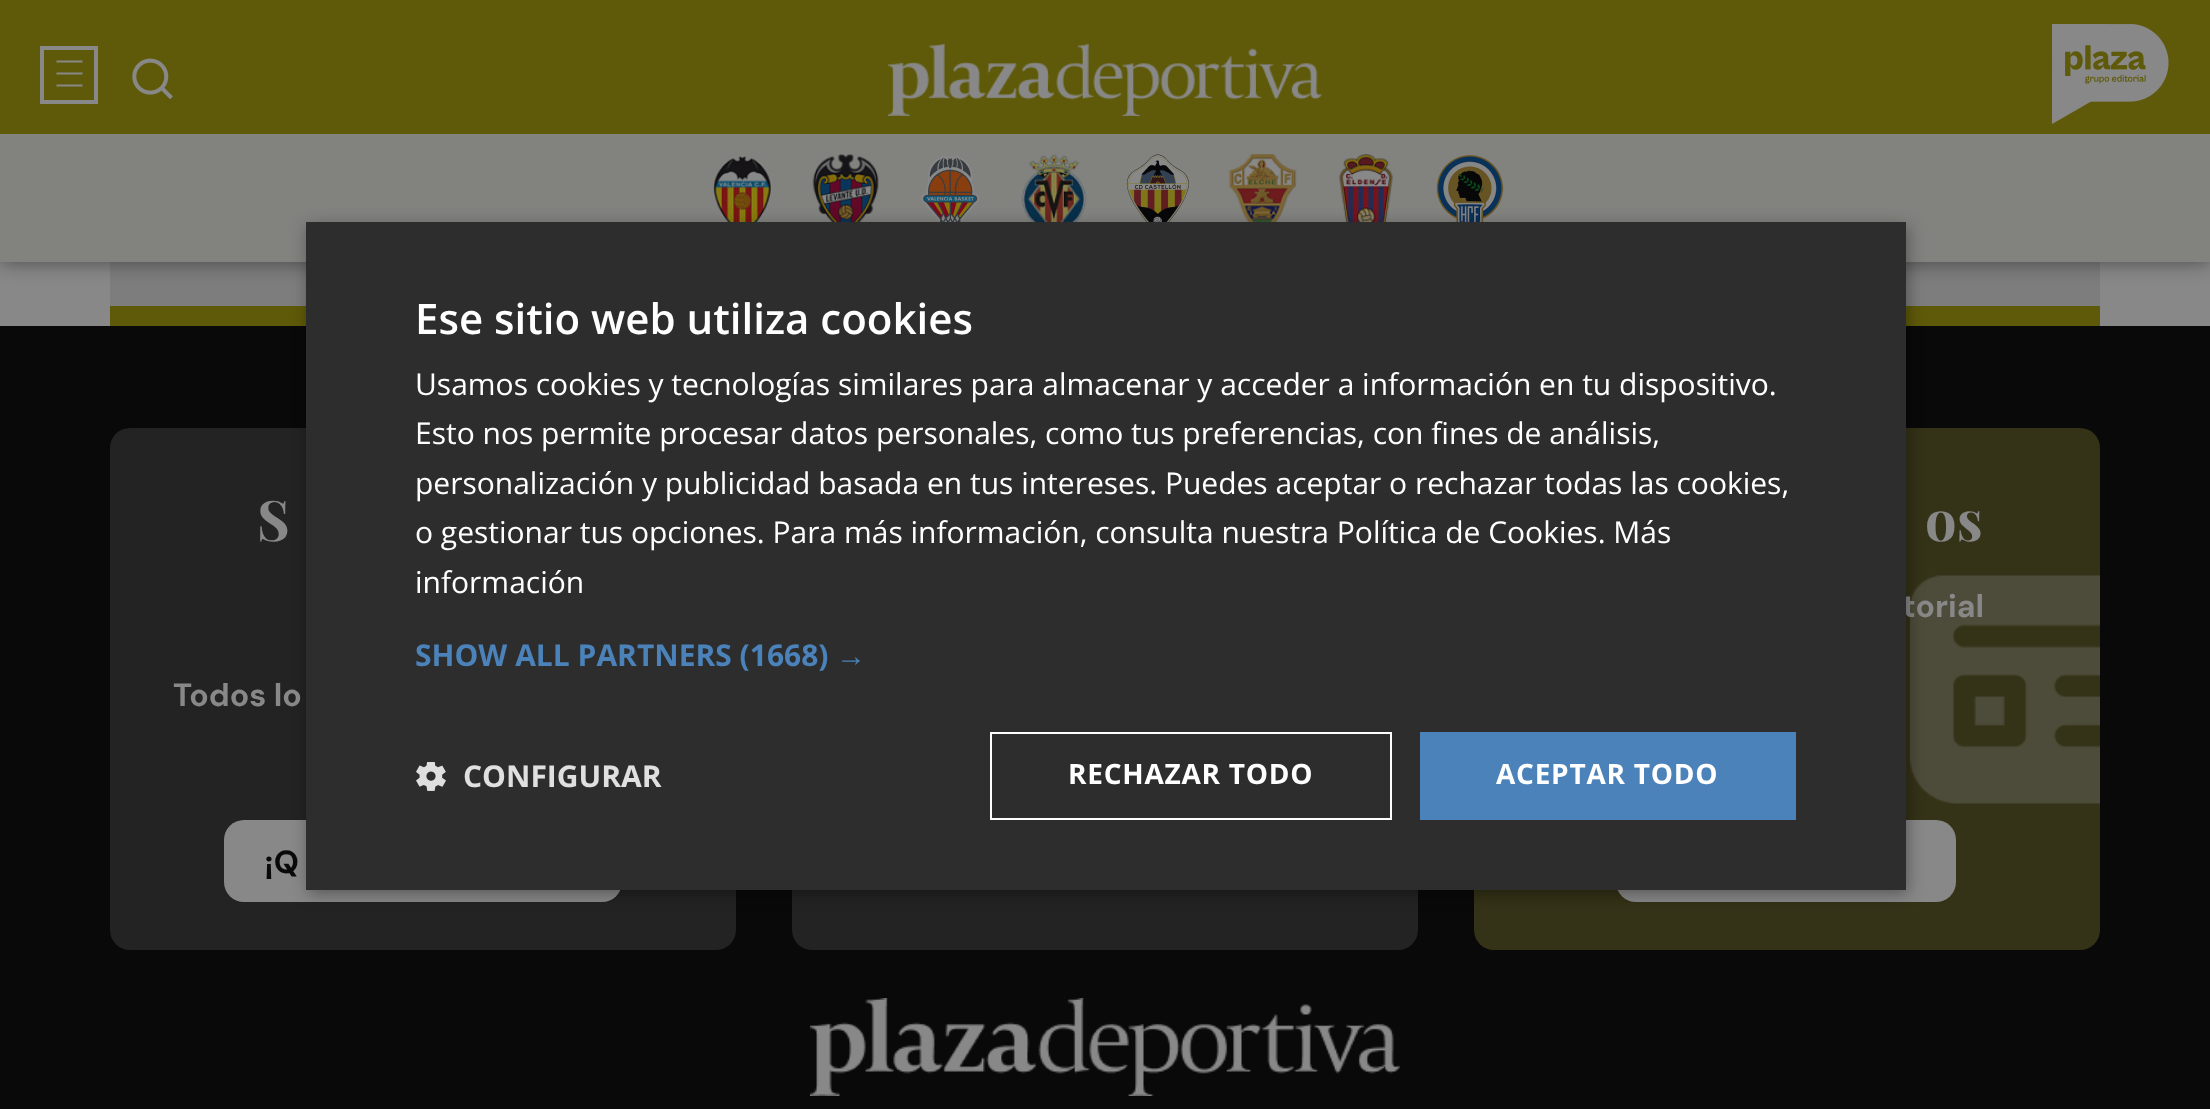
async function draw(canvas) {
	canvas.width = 2210;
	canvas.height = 1109;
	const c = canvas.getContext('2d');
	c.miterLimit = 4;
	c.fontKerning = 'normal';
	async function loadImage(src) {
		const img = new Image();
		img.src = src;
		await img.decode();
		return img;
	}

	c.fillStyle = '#888';
	c.fillRect(0, 0, 2210, 1109);
	c.fillStyle = '#7d7d7d';
	c.fillRect(110, 262, 1990, 44);
	c.fillStyle = '#09090980';
	c.filter = 'blur(10px)';
	c.beginPath();
	c.rect(0, 0, 2210, 262);
	c.fill();
	c.filter = 'none';
	c.fillStyle = '#5f5a09';
	c.fillRect(0, 0, 2210, 134);
	c.strokeStyle = '#888';
	c.lineWidth = 4;
	c.strokeRect(42, 48, 54, 54);
	c.beginPath();
	c.moveTo(56.5, 61.5);
	c.lineTo(82.5, 61.5);
	c.moveTo(56.5, 73.5);
	c.lineTo(82.5, 73.5);
	c.moveTo(56.5, 85.5);
	c.lineTo(82.5, 85.5);
	c.lineWidth = 2;
	c.stroke();
	c.drawImage(await loadImage('img1.png'), 132, 58, 41, 42);
	c.drawImage(await loadImage('img2.png'), 888, 44, 434, 72);
	c.drawImage(await loadImage('img3.png'), 2052, 24, 117, 100);
	c.fillStyle = '#82827f';
	c.fillRect(0, 134, 2210, 128);
	c.drawImage(await loadImage('img4.png'), 713, 155, 59, 67);
	c.drawImage(await loadImage('img5.png'), 812, 154, 67, 68);
	c.drawImage(await loadImage('img6.png'), 921, 155, 58, 67);
	c.drawImage(await loadImage('img7.png'), 1021, 154, 66, 68);
	c.drawImage(await loadImage('img8.png'), 1126, 154, 63, 68);
	c.drawImage(await loadImage('img9.png'), 1228, 154, 69, 68);
	c.drawImage(await loadImage('img10.png'), 1339, 154, 54, 68);
	c.drawImage(await loadImage('img11.png'), 1436, 155, 68, 67);
	c.fillStyle = '#5f5a09';
	c.fillRect(110, 306, 1990, 20);
	c.fillStyle = '#090909';
	c.fillRect(0, 326, 2210, 783);
	c.fillStyle = '#232323';
	c.beginPath();
	c.roundRect(110, 428, 626, 522, 20);
	c.fill();
	c.fillStyle = '#888';
	c.beginPath();
	c.roundRect(224, 820, 398, 82, 20);
	c.fill();
	c.fillStyle = '#232323';
	c.beginPath();
	c.roundRect(792, 428, 626, 522, 20);
	c.fill();
	c.fillStyle = '#343217';
	c.beginPath();
	c.roundRect(1474, 428, 626, 522, 20);
	c.fill();
	c.font = 'bold 32px DM Sans';
	c.fillStyle = '#888';
	c.fillText('torial', 1902, 617);
	c.drawImage(await loadImage('img13.png'), 1910, 575, 190, 229);
	c.beginPath();
	c.roundRect(1616, 820, 340, 82, 20);
	c.fill();
	c.fillStyle = '#00000059';
	c.filter = 'blur(8px)';
	c.beginPath();
	c.rect(308, 226, 1600, 668);
	c.fill();
	c.filter = 'none';
	c.fillStyle = '#2d2d2d';
	c.fillRect(306, 222, 1600, 668);
	c.font = '600 42px Open Sans';
	c.fillStyle = '#fff';
	c.fillText('Ese sitio web utiliza cookies', 415, 334);
	c.font = '30px Open Sans';
	for (const [text, x, y] of [
		['Usamos cookies y tecnologías similares para almacenar y acceder a información en tu dispositivo.', 415, 395],
		['Esto nos permite procesar datos personales, como tus preferencias, con fines de análisis,', 415, 444],
		['personalización y publicidad basada en tus intereses. Puedes aceptar o rechazar todas las cookies,', 415, 494],
		['o gestionar tus opciones. Para más información, consulta nuestra Política de Cookies. Más', 415, 543],
		['información', 415, 593],
	]) {
		c.fillText(text, x, y);
	}
	c.font = 'bold 30px Open Sans';
	c.fillStyle = '#4a82b9';
	c.fillText('SHOW ALL PARTNERS (1668)', 415, 666);
	c.font = 'bold 30px Liberation Sans';
	c.fillText('→', 836, 666);
	c.drawImage(await loadImage('img12.png'), 416, 762, 30, 29);
	c.font = 'bold 30px Open Sans';
	c.fillStyle = '#e0e0e0';
	c.fillText('CONFIGURAR', 463, 787);
	c.strokeStyle = '#fff';
	c.strokeRect(991, 733, 400, 86);
	c.letterSpacing = '0.75px';
	c.font = 'bold 28px Open Sans';
	c.fillStyle = '#fff';
	c.fillText('RECHAZAR TODO', 1068, 784);
	c.fillStyle = '#4a82b9';
	c.fillRect(1420, 732, 376, 88);
	c.fillStyle = '#fff';
	c.fillText('ACEPTAR TODO', 1496, 784);
	c.letterSpacing = '0px';
	c.font = 'bold 56px Playfair Display';
	c.fillStyle = '#888';
	c.fillText('S', 257, 541);
	c.font = 'bold 32px DM Sans';
	c.fillText('Todos lo', 173, 706);
	c.fillStyle = '#090909';
	c.fillText('¡Q', 264, 873);
	c.font = 'bold 56px Playfair Display';
	c.fillStyle = '#888';
	c.fillText('os', 1925, 541);
	c.drawImage(await loadImage('img14.png'), 810, 998, 590, 98);
}

draw(document.querySelector('canvas'));
